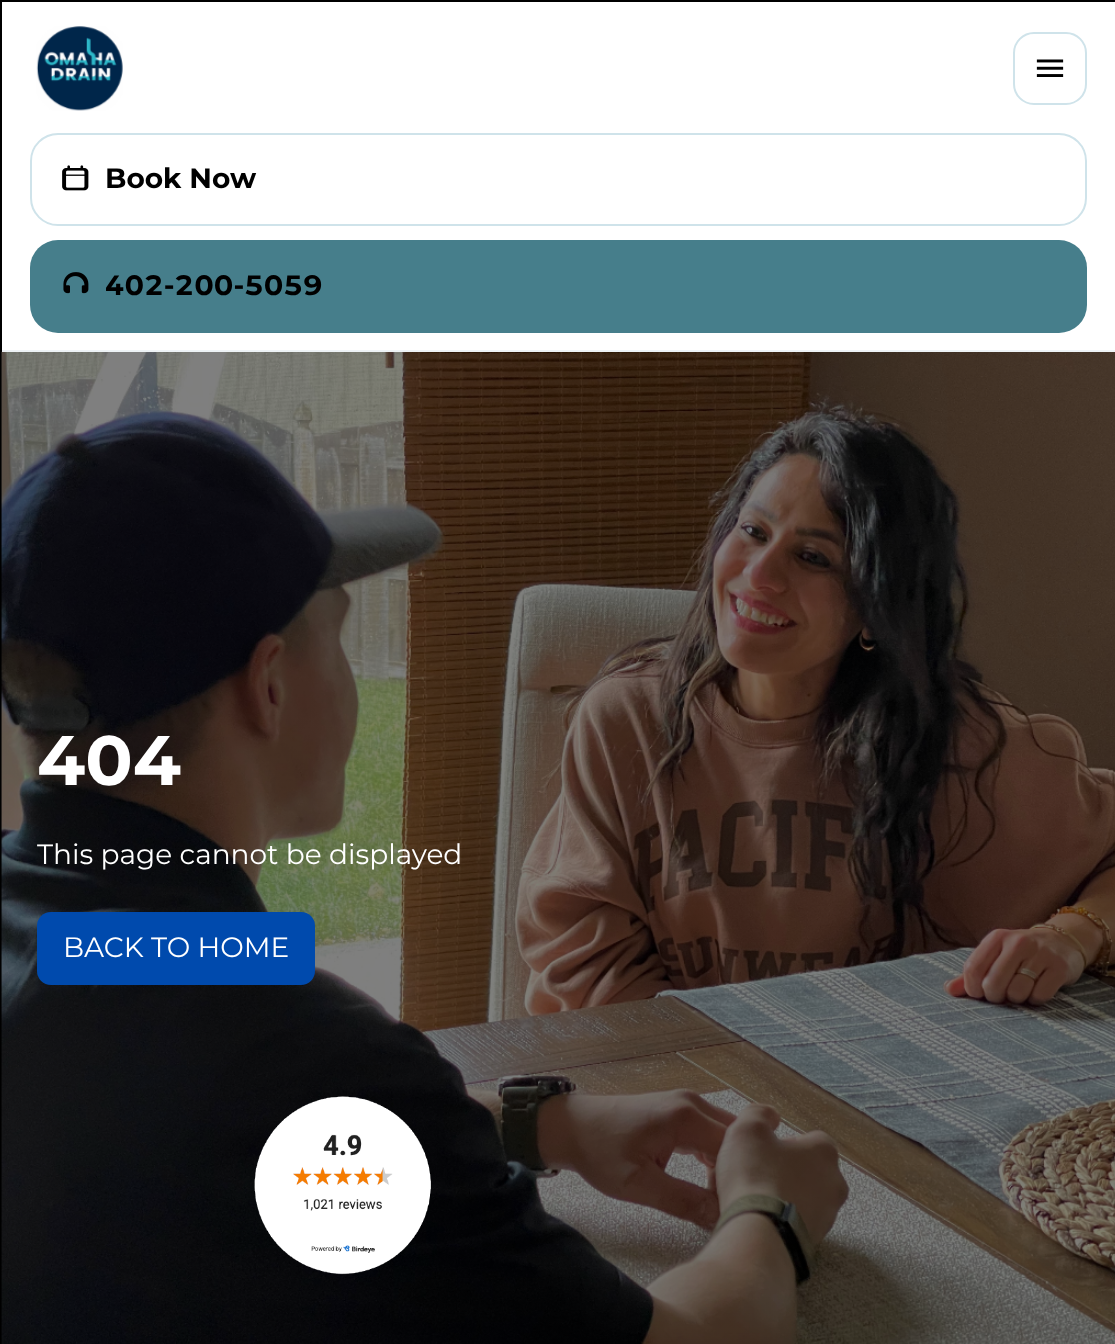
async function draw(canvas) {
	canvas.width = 1115;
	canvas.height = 1344;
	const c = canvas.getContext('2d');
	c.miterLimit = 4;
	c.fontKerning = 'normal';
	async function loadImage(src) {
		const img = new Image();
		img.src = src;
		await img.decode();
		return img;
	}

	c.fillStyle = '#fff';
	c.fillRect(0, 0, 1115, 1344);
	c.strokeStyle = '#000';
	c.lineWidth = 2;
	c.strokeRect(1, 1, 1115, 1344);
	c.drawImage(await loadImage('img5.png'), 1, 351, 1114, 993);
	c.fillStyle = '#eef3f6';
	c.fillRect(2, 350, 1113, 2);
	c.drawImage(await loadImage('img1.png'), 36, 26, 87, 85);
	c.beginPath();
	c.roundRect(1014, 33, 72, 71, 20);
	c.strokeStyle = '#cfe3ea';
	c.stroke();
	c.drawImage(await loadImage('img2.png'), 1036, 59, 28, 18);
	c.beginPath();
	c.roundRect(31, 134, 1055, 91, 27);
	c.stroke();
	c.drawImage(await loadImage('img3.png'), 62, 165, 27, 26);
	c.font = 'bold 28px Montserrat';
	c.fillStyle = '#000';
	c.fillText('Book Now', 105, 188);
	c.fillStyle = '#467e8b';
	c.beginPath();
	c.roundRect(30, 240, 1057, 93, 28);
	c.fill();
	c.drawImage(await loadImage('img4.png'), 63, 272, 26, 22);
	c.font = 'bold 28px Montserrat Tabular';
	c.fillStyle = '#000';
	c.fillText('402-200-5059', 105, 295);
	c.font = 'bold 70px Montserrat';
	c.fillStyle = '#fff';
	c.fillText('404', 37, 785);
	c.font = '28px Montserrat';
	c.fillText('This page cannot be displayed', 37, 864);
	c.fillStyle = '#004aad';
	c.beginPath();
	c.roundRect(37, 912, 278, 73, 14);
	c.fill();
	c.fillStyle = '#fff';
	c.fillText('BACK TO HOME', 63, 957);
	c.drawImage(await loadImage('img6.png'), 254, 1096, 177, 179);
}

draw(document.querySelector('canvas'));
